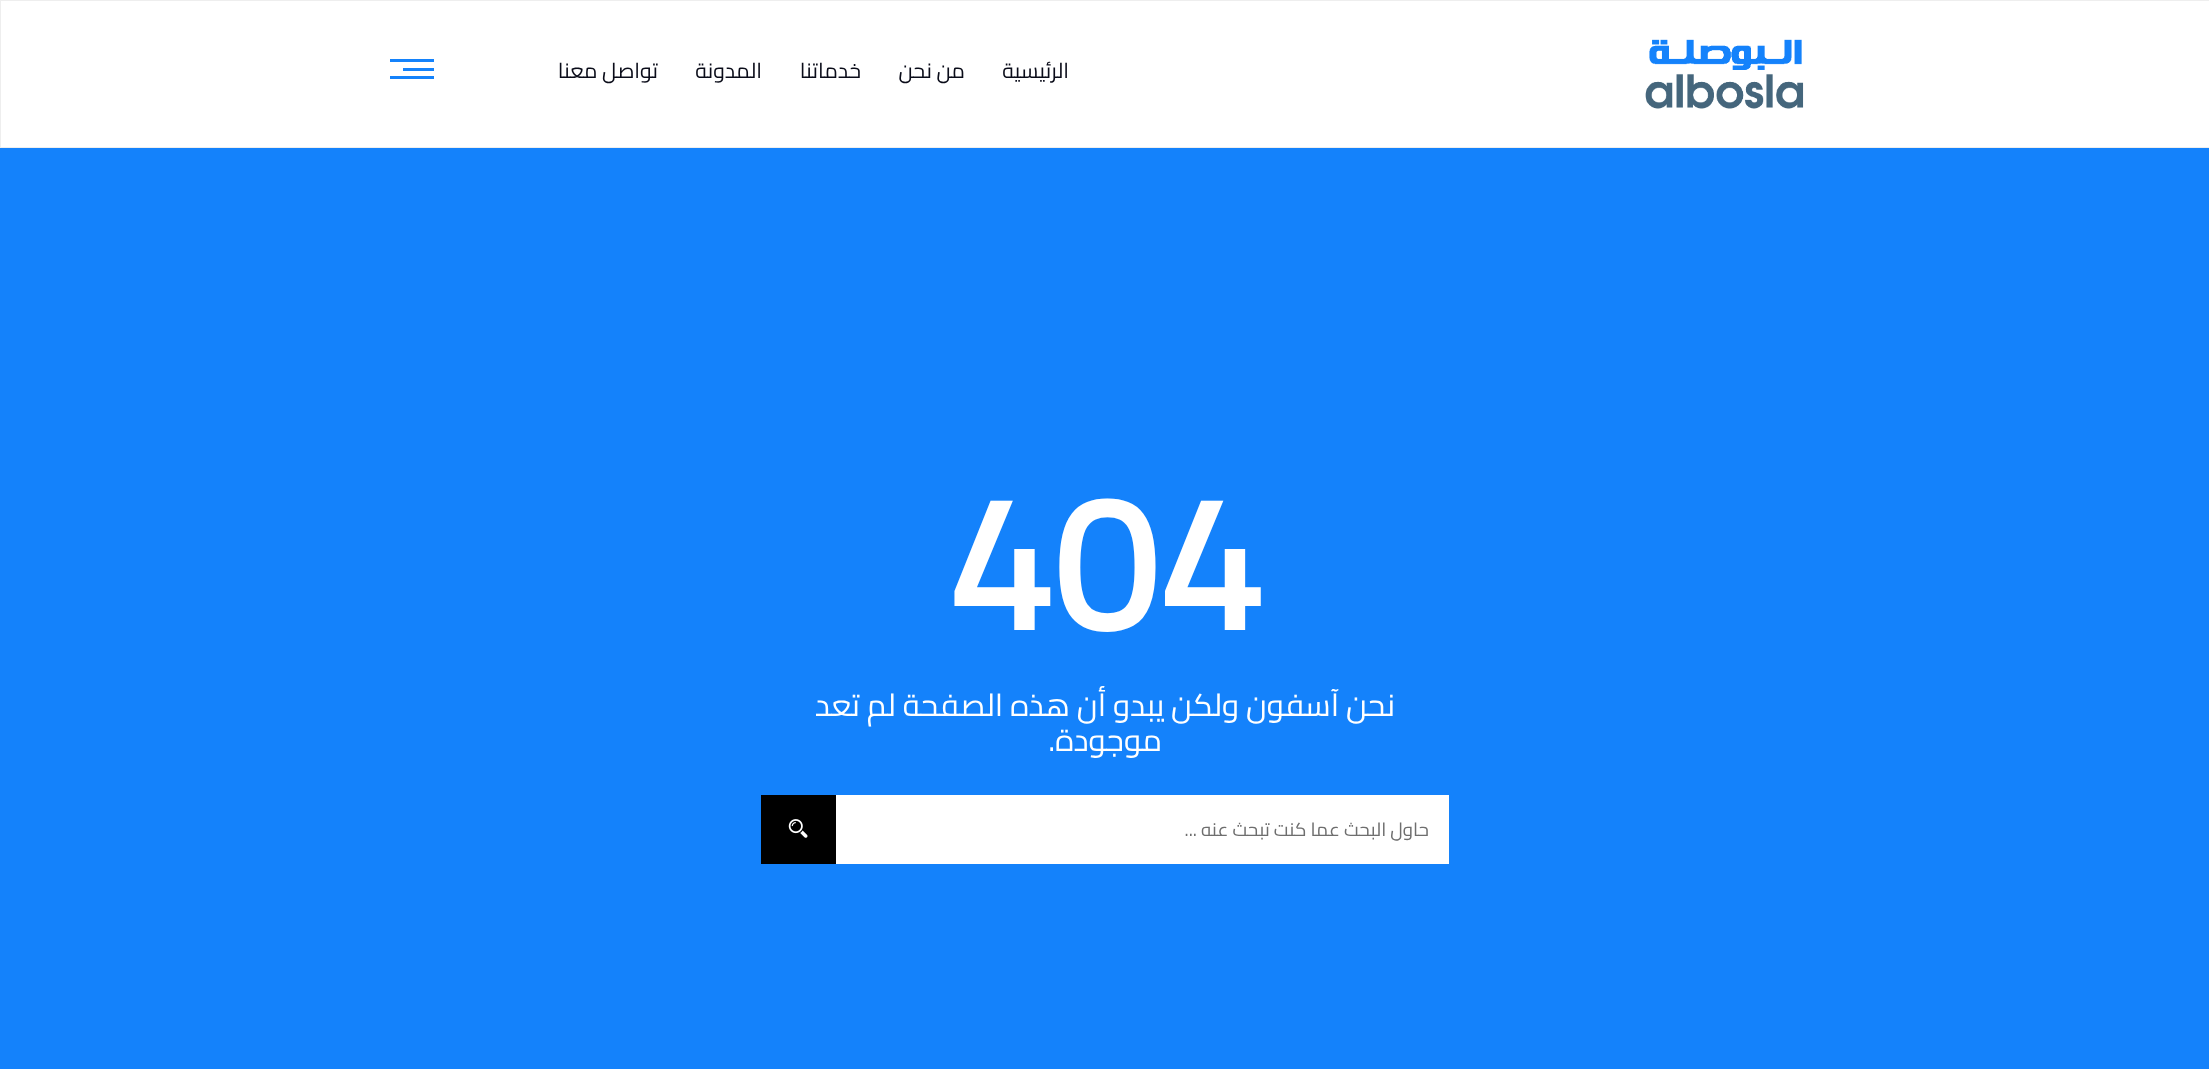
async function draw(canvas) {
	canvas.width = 2209;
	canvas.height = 1069;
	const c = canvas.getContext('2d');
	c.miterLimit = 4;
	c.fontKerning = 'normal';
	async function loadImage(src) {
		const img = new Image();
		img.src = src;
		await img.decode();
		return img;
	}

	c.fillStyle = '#fff';
	c.fillRect(0, 0, 2209, 1069);
	c.strokeStyle = '#eee';
	c.strokeRect(0.5, 0.5, 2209, 147);
	c.drawImage(await loadImage('img1.png'), 1645, 39, 159, 70);
	c.direction = 'rtl';
	c.font = '21.25px Cairo';
	c.fillStyle = '#0a0c19';
	for (const [text, x, y] of [
		['الرئيسية', 1069, 78],
		['من نحن', 965, 78],
		['خدماتنا', 861, 78],
		['المدونة', 762, 78],
		['تواصل معنا', 658, 78],
	]) {
		c.fillText(text, x, y);
	}
	for (const [x, y, w, h, color] of [
		[403, 68, 31, 3, '#1482fb'],
		[390, 59, 44, 3, '#1482fb'],
		[390, 76, 44, 3, '#1482fb'],
		[0, 148, 2209, 921, '#1482fb'],
	]) {
		c.fillStyle = color;
		c.fillRect(x, y, w, h);
	}
	c.direction = 'ltr';
	c.font = 'bold 188px Cairo';
	c.fillStyle = '#fff';
	c.fillText('404', 947, 630);
	c.direction = 'rtl';
	c.font = '31.25px Cairo';
	c.fillText('نحن آسفون ولكن يبدو أن هذه الصفحة لم تعد', 1395, 716);
	c.fillText('موجودة.', 1162, 751);
	c.fillRect(836, 796, 612, 67);
	c.strokeStyle = '#fff';
	c.strokeRect(761.5, 795.5, 687, 68);
	c.font = '18.75px Cairo';
	c.fillStyle = '#6e6e6e';
	c.fillText('حاول البحث عما كنت تبحث عنه ...', 1429, 836);
	c.fillStyle = '#000';
	c.fillRect(761, 795, 75, 69);
	c.drawImage(await loadImage('img2.png'), 788, 819, 20, 19);
}

draw(document.querySelector('canvas'));
